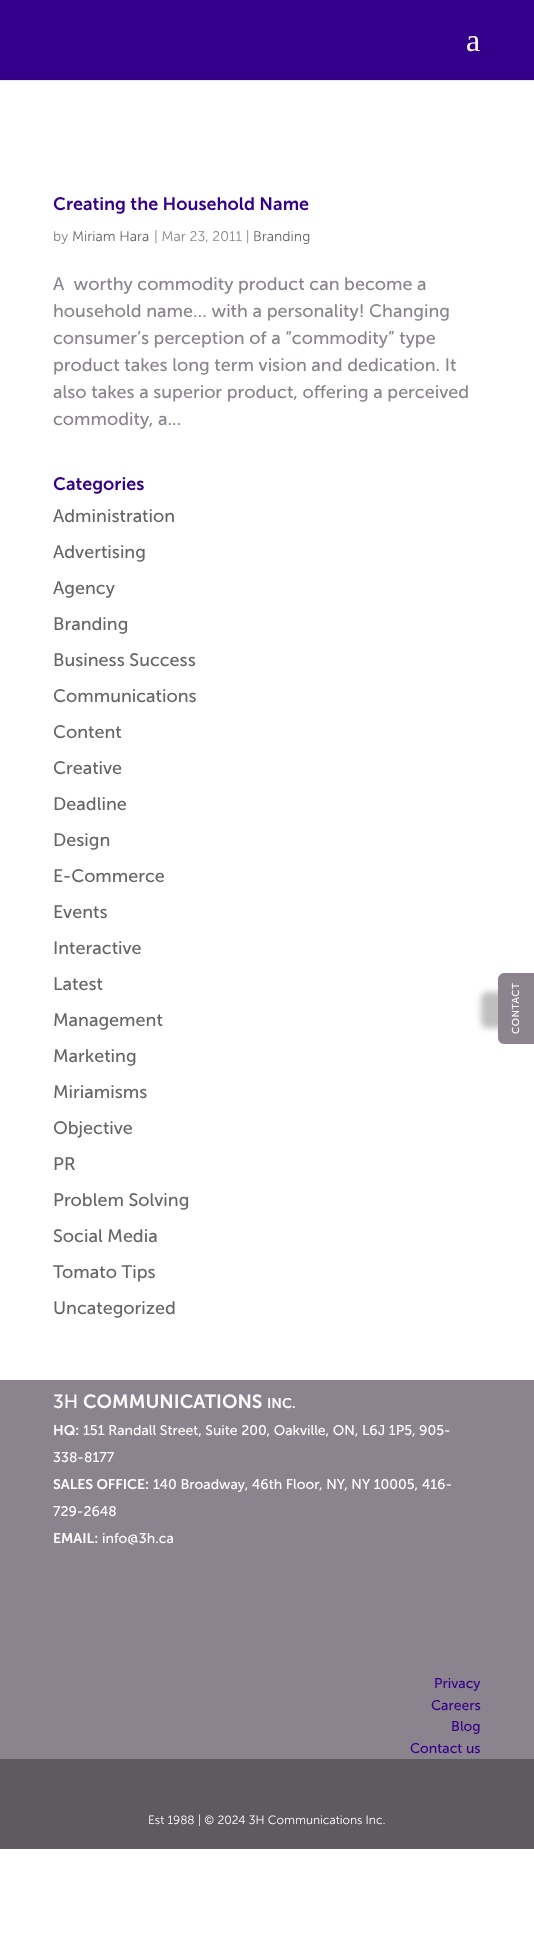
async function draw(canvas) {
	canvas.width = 534;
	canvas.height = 1950;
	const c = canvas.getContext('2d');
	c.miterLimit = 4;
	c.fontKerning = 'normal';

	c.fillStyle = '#fff';
	c.fillRect(0, 0, 534, 1950);
	c.fillStyle = '#e6e6e6';
	c.fillRect(0, 80, 534, 1);
	c.fillStyle = '#34008b';
	c.fillRect(0, 0, 534, 80);
	c.font = '32px Liberation Serif';
	c.fillStyle = '#fff';
	c.fillText('a', 466, 51);
	c.font = '600 18px "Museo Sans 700"';
	c.fillStyle = '#34008b';
	c.fillText('Creating the Household Name', 53, 210);
	c.font = '300 14px "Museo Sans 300"';
	c.fillStyle = '#8b838d';
	c.fillText('by', 53, 241);
	c.fillStyle = '#666';
	c.fillText('Miriam Hara', 72, 241);
	c.fillStyle = '#8b838d';
	c.fillText('| Mar 23, 2011 |', 154, 241);
	c.fillStyle = '#666';
	c.fillText('Branding', 253, 241);
	c.font = '18px "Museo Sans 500"';
	c.fillStyle = '#8b838d';
	for (const [text, x, y] of [
		['A  worthy commodity product can become a', 53, 290],
		['household name… with a personality! Changing', 53, 317],
		['consumer’s perception of a “commodity” type', 53, 344],
		['product takes long term vision and dedication. It', 53, 371],
		['also takes a superior product, offering a perceived', 53, 398],
		['commodity, a...', 53, 425],
	]) {
		c.fillText(text, x, y);
	}
	c.font = '600 18px "Museo Sans 700"';
	c.fillStyle = '#34008b';
	c.fillText('Categories', 53, 490);
	c.font = '18px "Museo Sans 500"';
	c.fillStyle = '#666';
	for (const [text, x, y] of [
		['Administration', 53, 522],
		['Advertising', 53, 558],
		['Agency', 53, 594],
		['Branding', 53, 630],
		['Business Success', 53, 666],
		['Communications', 53, 702],
		['Content', 53, 738],
		['Creative', 53, 774],
		['Deadline', 53, 810],
		['Design', 53, 846],
		['E-Commerce', 53, 882],
		['Events', 53, 918],
		['Interactive', 53, 954],
		['Latest', 53, 990],
		['Management', 53, 1026],
		['Marketing', 53, 1062],
		['Miriamisms', 53, 1098],
		['Objective', 53, 1134],
		['PR', 53, 1170],
		['Problem Solving', 53, 1206],
		['Social Media', 53, 1242],
		['Tomato Tips', 53, 1278],
		['Uncategorized', 53, 1314],
	]) {
		c.fillText(text, x, y);
	}
	c.fillStyle = '#8b838d';
	c.fillRect(0, 1380, 534, 379);
	c.font = '19px "Museo Sans 500"';
	c.fillStyle = '#fff';
	c.fillText('3H', 53, 1408);
	c.font = '600 19px "Museo Sans 700"';
	c.fillText('COMMUNICATIONS', 83, 1408);
	c.font = '600 14px "Museo Sans 700"';
	c.fillText('INC.', 267, 1408);
	c.fillText('HQ:', 53, 1435);
	c.font = '14px "Museo Sans 500"';
	c.fillText('151 Randall Street, Suite 200, Oakville, ON, L6J 1P5, 905-', 83, 1435);
	c.fillText('338-8177', 53, 1462);
	c.font = '600 14px "Museo Sans 700"';
	c.fillText('SALES OFFICE:', 53, 1489);
	c.font = '14px "Museo Sans 500"';
	c.fillText('140 Broadway, 46th Floor, NY, NY 10005, 416-', 153, 1489);
	c.fillText('729-2648', 53, 1516);
	c.font = '600 14px "Museo Sans 700"';
	c.fillText('EMAIL:', 53, 1543);
	c.font = '14px "Museo Sans 500"';
	c.fillText('info@3h.ca', 102, 1543);
	c.fillStyle = '#34008b';
	for (const [text, x, y] of [
		['Privacy', 434, 1688],
		['Careers', 431, 1710],
		['Blog', 451, 1731],
		['Contact us', 410, 1753],
	]) {
		c.fillText(text, x, y);
	}
	c.fillStyle = '#5f5960';
	c.fillRect(0, 1759, 534, 90);
	c.font = '300 12px "Museo Sans 300"';
	c.fillStyle = '#fff';
	c.fillText('Est 1988 | © 2024 3H Communications Inc.', 148, 1824);
	c.fillStyle = '#00000040';
	c.filter = 'blur(3px)';
	c.beginPath();
	c.roundRect(481, 992, 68, 36, 6);
	c.fill();
	c.filter = 'none';
	c.fillStyle = '#8b838d';
	c.beginPath();
	c.moveTo(498, 1038);
	c.lineTo(498, 979);
	c.bezierCurveTo(498, 976, 501, 973, 504, 973);
	c.lineTo(534, 973);
	c.lineTo(534, 1044);
	c.lineTo(504, 1044);
	c.bezierCurveTo(501, 1044, 498, 1041, 498, 1038);
	c.closePath();
	c.fill();
	c.letterSpacing = '0.5px';
	c.font = '10px "Museo Sans 500"';
	c.fillStyle = '#fff';
	c.save();
	c.translate(519, 1034);
	c.rotate(-90 * Math.PI / 180);
	c.fillText('CONTACT', 0, 0);
	c.restore();
}

draw(document.querySelector('canvas'));
